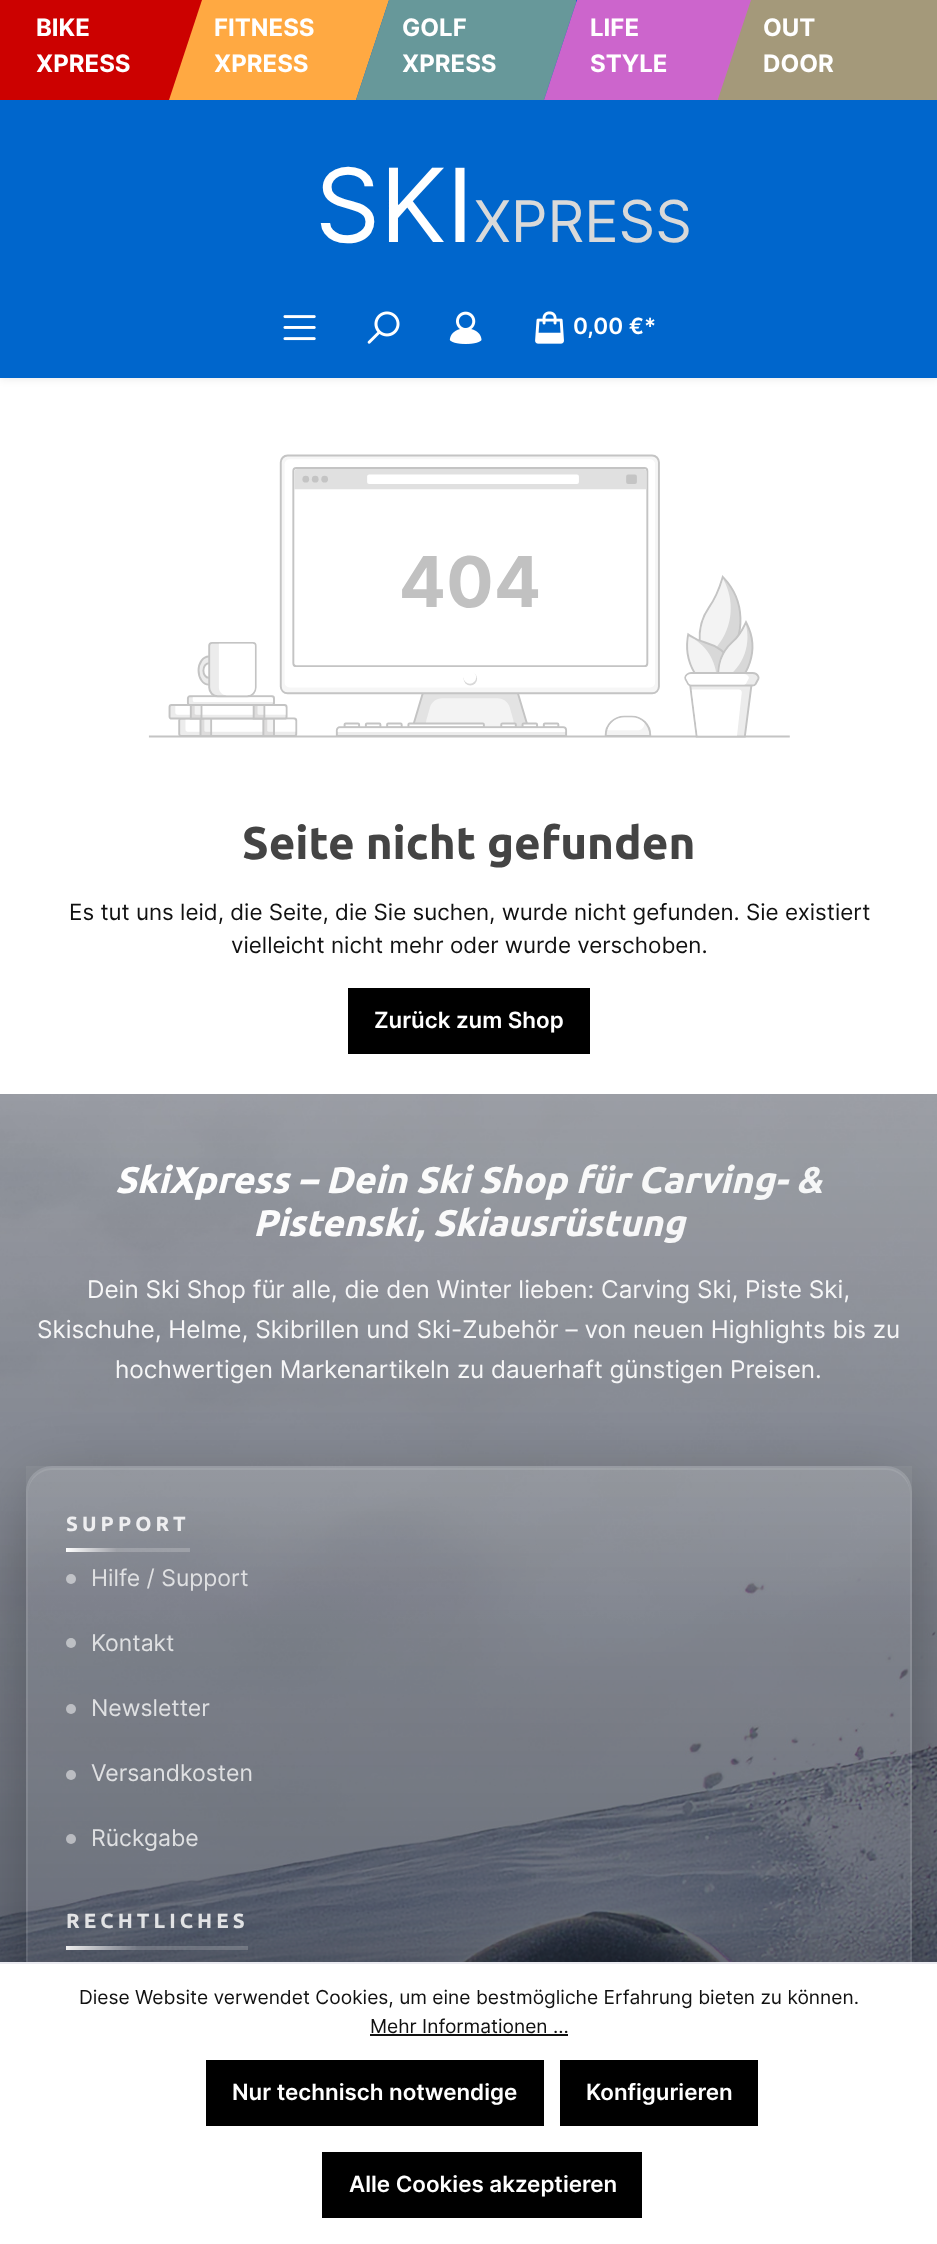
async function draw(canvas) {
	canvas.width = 937;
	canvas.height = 2244;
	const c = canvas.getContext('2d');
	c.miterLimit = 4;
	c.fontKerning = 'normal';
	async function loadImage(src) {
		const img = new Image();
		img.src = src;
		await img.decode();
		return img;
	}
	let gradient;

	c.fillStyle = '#fff';
	c.fillRect(0, 0, 937, 2244);
	c.fillStyle = '#0000001a';
	c.filter = 'blur(5px)';
	c.beginPath();
	c.rect(0, 0, 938, 378);
	c.fill();
	c.filter = 'none';
	c.fillStyle = '#06c';
	c.fillRect(0, 0, 937, 378);
	c.fillStyle = '#cc0100';
	c.beginPath();
	c.moveTo(-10, 0);
	c.lineTo(-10, 100);
	c.lineTo(177, 100);
	c.lineTo(210, 1);
	c.lineTo(210, 0);
	c.closePath();
	c.fill();
	c.font = 'bold 24px Inter';
	c.fillStyle = '#fff';
	c.fillText('BIKE', 36, 36);
	c.fillText('XPRESS', 36, 72);
	c.fillStyle = '#ffa942';
	c.beginPath();
	c.moveTo(202, 0);
	c.lineTo(169, 100);
	c.lineTo(356, 100);
	c.lineTo(389, 0);
	c.closePath();
	c.fill();
	c.fillStyle = '#fff';
	c.fillText('FITNESS', 214, 36);
	c.fillText('XPRESS', 214, 72);
	c.fillStyle = '#67989a';
	c.beginPath();
	c.moveTo(389, 0);
	c.lineTo(356, 100);
	c.lineTo(544, 100);
	c.lineTo(576, 3);
	c.lineTo(576, 0);
	c.closePath();
	c.fill();
	c.fillStyle = '#fff';
	c.fillText('GOLF', 402, 36);
	c.fillText('XPRESS', 402, 72);
	c.fillStyle = '#cc65cc';
	c.beginPath();
	c.moveTo(577, 0);
	c.lineTo(544, 100);
	c.lineTo(731, 100);
	c.lineTo(764, 1);
	c.lineTo(764, 0);
	c.closePath();
	c.fill();
	c.fillStyle = '#fff';
	c.fillText('LIFE', 590, 36);
	c.fillText('STYLE', 590, 72);
	c.fillStyle = '#a4997a';
	c.beginPath();
	c.moveTo(751, 0);
	c.lineTo(718, 99);
	c.lineTo(718, 100);
	c.lineTo(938, 100);
	c.lineTo(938, 0);
	c.closePath();
	c.fill();
	c.fillStyle = '#fff';
	c.fillText('OUT', 763, 36);
	c.fillText('DOOR', 763, 72);
	c.font = '102px Inter';
	c.fillText('SKI', 315, 242);
	c.font = '57.5px Inter';
	c.fillStyle = '#d9d9d9';
	c.fillText('XPRESS', 474, 242);
	c.drawImage(await loadImage('img1.png'), 283, 315, 33, 26);
	c.drawImage(await loadImage('img2.png'), 367, 311, 33, 33);
	c.drawImage(await loadImage('img3.png'), 449, 311, 33, 33);
	c.drawImage(await loadImage('img4.png'), 535, 311, 29, 33);
	c.font = '600 22.4px Inter';
	c.fillStyle = '#fff';
	c.fillText('0,00 €*', 573, 334);
	c.drawImage(await loadImage('img5.png'), 148, 454, 642, 284);
	c.font = 'bold 45.75px Ubuntu';
	c.fillStyle = '#444';
	c.fillText('Seite nicht gefunden', 242, 859);
	c.font = '22.4px Inter';
	c.fillStyle = '#111';
	c.fillText('Es tut uns leid, die Seite, die Sie suchen, wurde nicht gefunden. Sie existiert', 69, 920);
	c.fillText('vielleicht nicht mehr oder wurde verschoben.', 231, 953);
	c.fillStyle = '#000';
	c.fillRect(348, 988, 242, 66);
	c.font = '600 22.4px Inter';
	c.fillStyle = '#fff';
	c.fillText('Zurück zum Shop', 374, 1028);
	c.drawImage(await loadImage('img6.png'), 0, 1094, 937, 868);
	c.font = 'italic bold 37.1px Ubuntu';
	gradient = c.createLinearGradient(226, 958, 712, 1445);
	gradient.addColorStop(0, '#fff');
	gradient.addColorStop(1, '#f4f5f5');
	c.fillStyle = gradient;
	c.fillText('SkiXpress – Dein Ski Shop für Carving- &', 115, 1193);
	gradient = c.createLinearGradient(226, 958, 712, 1445);
	gradient.addColorStop(0, '#fff');
	gradient.addColorStop(1, '#f4f4f5');
	c.fillStyle = gradient;
	c.fillText('Pistenski, Skiausrüstung', 253, 1236);
	c.font = '24.3px Inter';
	c.fillStyle = '#f6f6f7';
	for (const [text, x, y] of [
		['Dein Ski Shop für alle, die den Winter lieben: Carving Ski, Piste Ski,', 87, 1298],
		['Skischuhe, Helme, Skibrillen und Ski-Zubehör – von neuen Highlights bis zu', 37, 1338],
		['hochwertigen Markenartikeln zu dauerhaft günstigen Preisen.', 115, 1378],
	]) {
		c.fillText(text, x, y);
	}
	c.save();
	c.beginPath();
	c.moveTo(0, 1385);
	c.lineTo(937, 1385);
	c.lineTo(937, 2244);
	c.lineTo(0, 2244);
	c.closePath();
	c.moveTo(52, 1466);
	c.lineTo(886, 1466);
	c.bezierCurveTo(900.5, 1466, 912, 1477.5, 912, 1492);
	c.lineTo(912, 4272);
	c.bezierCurveTo(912, 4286.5, 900.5, 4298, 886, 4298);
	c.lineTo(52, 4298);
	c.bezierCurveTo(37.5, 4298, 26, 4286.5, 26, 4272);
	c.lineTo(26, 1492);
	c.bezierCurveTo(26, 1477.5, 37.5, 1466, 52, 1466);
	c.closePath();
	c.clip('evenodd');
	c.fillStyle = '#00000040';
	c.filter = 'blur(32px)';
	c.beginPath();
	c.roundRect(26, 1482, 886, 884, 26);
	c.fill();
	c.filter = 'none';
	c.restore();
	c.fillStyle = '#ffffff0f';
	c.fillRect(26, 1466, 886, 496);
	c.fillStyle = '#ffffff1a';
	c.beginPath();
	c.moveTo(52, 1470);
	c.lineTo(886, 1470);
	c.bezierCurveTo(899, 1470, 910, 1481, 910, 1494);
	c.lineTo(910, 1492);
	c.bezierCurveTo(910, 1479, 899, 1468, 886, 1468);
	c.lineTo(52, 1468);
	c.bezierCurveTo(39, 1468, 28, 1479, 28, 1492);
	c.lineTo(28, 1494);
	c.bezierCurveTo(28, 1481, 39, 1470, 52, 1470);
	c.closePath();
	c.fill();
	c.beginPath();
	c.roundRect(27, 1467, 884, 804, 25);
	c.strokeStyle = '#ffffff1a';
	c.lineWidth = 2;
	c.stroke();
	c.fillStyle = '#bfc1c6';
	c.beginPath();
	c.arc(71, 1579, 5, 0, 2 * Math.PI);
	c.fill();
	gradient = c.createLinearGradient(469, 1468, 469, 1628);
	gradient.addColorStop(0, '#ffffff14');
	gradient.addColorStop(1, '#ffffff00');
	c.fillStyle = gradient;
	c.beginPath();
	c.roundRect(28, 1468, 882, 160, [24, 24, 0, 0]);
	c.fill();
	c.fillStyle = '#ffffff33';
	c.fillRect(116, 1548, 74, 4);
	c.letterSpacing = '4.1px';
	c.font = 'bold 20.5px Ubuntu';
	c.fillStyle = '#eeeef0';
	c.fillText('SUPPORT', 66, 1531);
	gradient = c.createLinearGradient(66, 1550, 116, 1550);
	gradient.addColorStop(0, '#fff');
	gradient.addColorStop(1, '#a0a2a9');
	c.fillStyle = gradient;
	c.fillRect(66, 1548, 50, 4);
	c.letterSpacing = '0px';
	c.font = '23px Inter';
	c.fillStyle = '#dfe0e2';
	c.fillText('Hilfe / Support', 91, 1586);
	c.fillStyle = '#bdc0c4';
	c.beginPath();
	c.arc(71, 1643, 5, 0, 2 * Math.PI);
	c.fill();
	c.fillStyle = '#dfe0e2';
	c.fillText('Kontakt', 91, 1651);
	c.fillStyle = '#bcbec3';
	c.beginPath();
	c.arc(71, 1709, 5, 0, 2 * Math.PI);
	c.fill();
	c.fillStyle = '#dfe0e2';
	c.fillText('Newsletter', 91, 1716);
	c.fillStyle = '#bbbdc2';
	c.beginPath();
	c.arc(71, 1775, 5, 0, 2 * Math.PI);
	c.fill();
	c.fillStyle = '#dfe0e2';
	c.fillText('Versandkosten', 91, 1781);
	c.fillStyle = '#b9bbc0';
	c.beginPath();
	c.arc(71, 1839, 5, 0, 2 * Math.PI);
	c.fill();
	c.fillStyle = '#dfe0e2';
	c.fillText('Rückgabe', 91, 1846);
	c.fillStyle = '#ffffff33';
	c.fillRect(66, 1946, 182, 4);
	c.letterSpacing = '4.1px';
	c.font = 'bold 20.5px Ubuntu';
	c.fillStyle = '#e6e7e9';
	c.fillText('RECHTLICHES', 66, 1928);
	gradient = c.createLinearGradient(66, 1948, 140, 1948);
	gradient.addColorStop(0, '#fff');
	gradient.addColorStop(1, '#ffffff00');
	c.fillStyle = gradient;
	c.fillRect(66, 1946, 74, 4);
	c.fillStyle = '#00000033';
	c.filter = 'blur(30px)';
	c.beginPath();
	c.rect(0, 1962, 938, 282);
	c.fill();
	c.filter = 'none';
	c.fillStyle = '#fff';
	c.fillRect(0, 1964, 937, 280);
	c.fillStyle = '#eaeaf0';
	c.fillRect(0, 1962, 937, 2);
	c.letterSpacing = '0px';
	c.font = '19.2px Inter';
	c.fillStyle = '#111';
	c.fillText('Diese Website verwendet Cookies, um eine bestmögliche Erfahrung bieten zu können.', 79, 2004);
	c.fillText('Mehr Informationen ...', 370, 2033);
	c.fillRect(370, 2034, 198, 2);
	c.fillStyle = '#000';
	c.fillRect(206, 2060, 338, 66);
	c.font = '600 22.4px Inter';
	c.fillStyle = '#fff';
	c.fillText('Nur technisch notwendige', 232, 2100);
	c.fillStyle = '#000';
	c.fillRect(560, 2060, 198, 66);
	c.fillStyle = '#fff';
	c.fillText('Konfigurieren', 586, 2100);
	c.fillStyle = '#000';
	c.fillRect(322, 2152, 320, 66);
	c.fillStyle = '#fff';
	c.fillText('Alle Cookies akzeptieren', 349, 2192);
}

draw(document.querySelector('canvas'));
